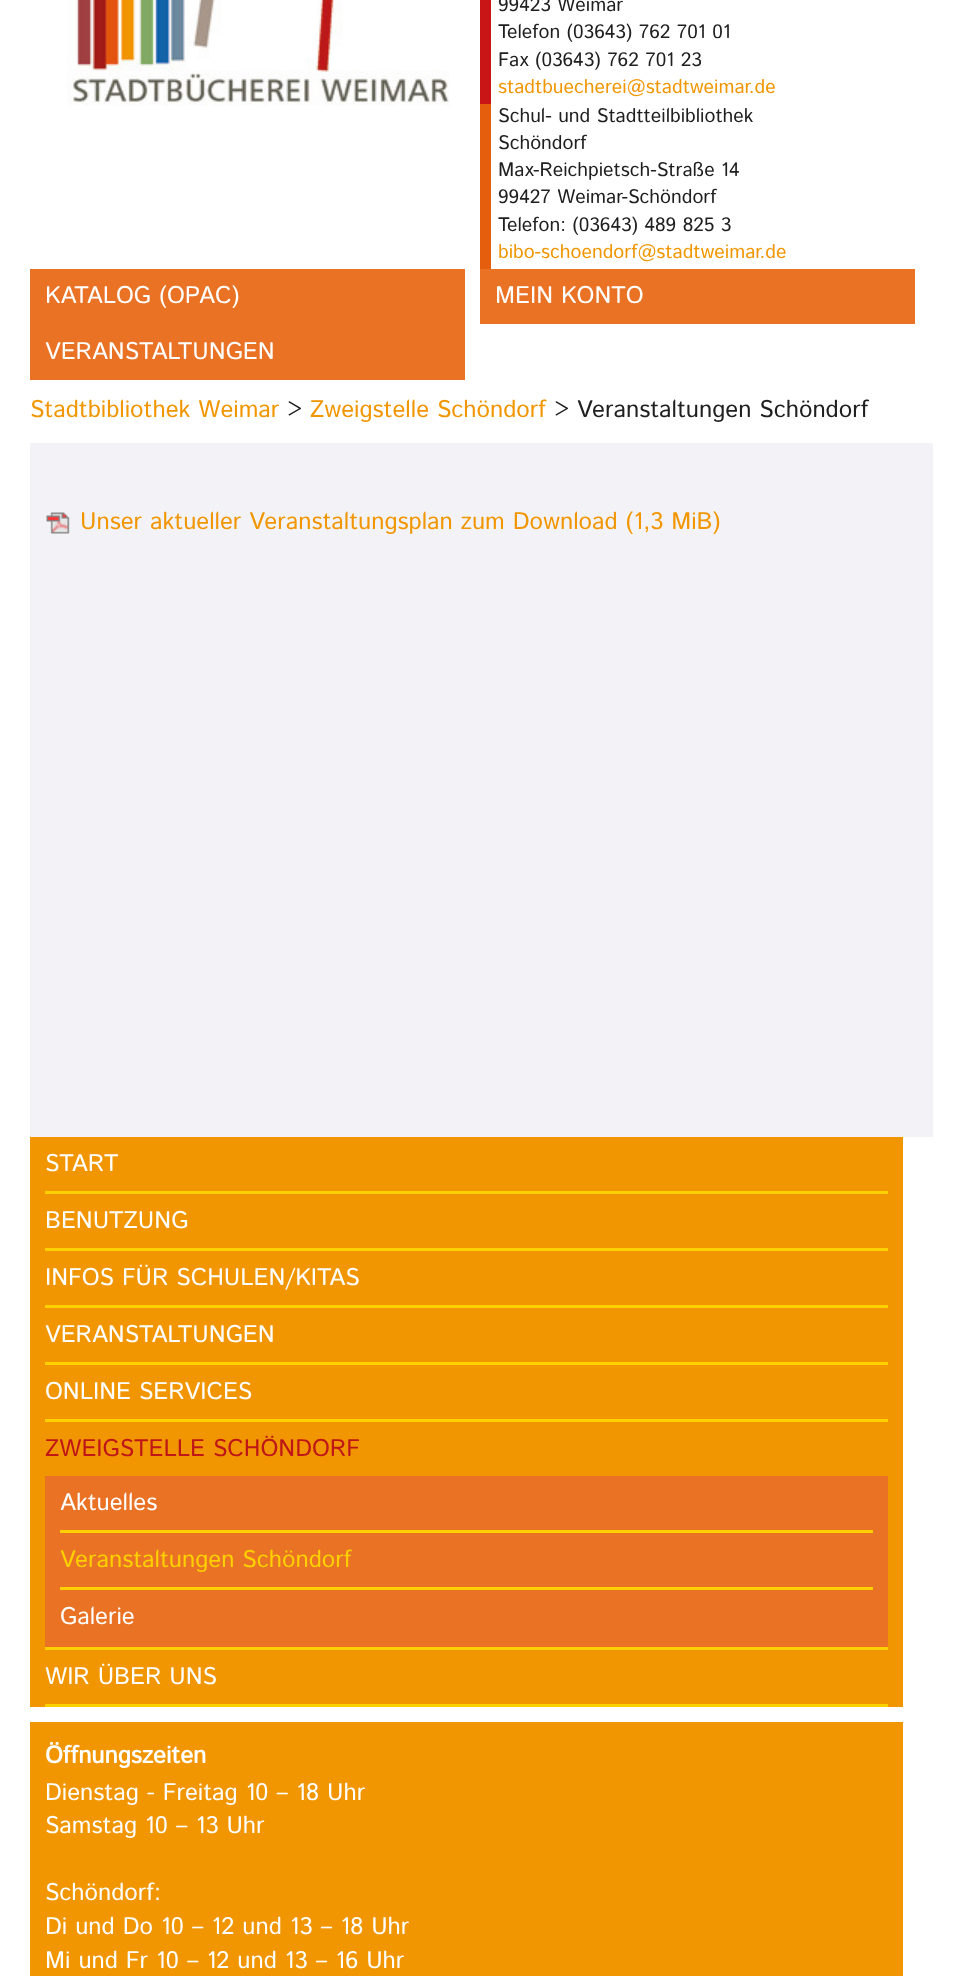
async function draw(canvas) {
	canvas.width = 962;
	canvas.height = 1976;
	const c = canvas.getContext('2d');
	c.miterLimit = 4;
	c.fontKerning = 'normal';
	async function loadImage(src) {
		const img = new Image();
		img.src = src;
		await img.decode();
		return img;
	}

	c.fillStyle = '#fff';
	c.fillRect(0, 0, 962, 1976);
	c.drawImage(await loadImage('img1.png'), 66, 0, 384, 106);
	c.fillStyle = '#ca1517';
	c.fillRect(480, 0, 11, 104);
	c.font = '19.5px Istok Web';
	c.fillStyle = '#202020';
	for (const [text, x, y] of [
		['99423 Weimar', 498, 11],
		['Telefon (03643) 762 701 01', 498, 38],
		['Fax (03643) 762 701 23', 498, 66],
	]) {
		c.fillText(text, x, y);
	}
	c.fillStyle = '#f19600';
	c.fillText('stadtbuecherei@stadtweimar.de', 498, 93);
	c.fillStyle = '#e55e0e';
	c.fillRect(480, 104, 11, 165);
	c.fillStyle = '#202020';
	for (const [text, x, y] of [
		['Schul- und Stadtteilbibliothek', 498, 122],
		['Schöndorf', 498, 149],
		['Max-Reichpietsch-Straße 14', 498, 176],
		['99427 Weimar-Schöndorf', 498, 203],
		['Telefon: (03643) 489 825 3', 498, 231],
	]) {
		c.fillText(text, x, y);
	}
	c.fillStyle = '#f19600';
	c.fillText('bibo-schoendorf@stadtweimar.de', 498, 258);
	c.fillStyle = '#ea7225';
	c.fillRect(30, 269, 435, 111);
	c.font = '24px Istok Web';
	c.fillStyle = '#fff';
	c.fillText('KATALOG (OPAC)', 45, 303);
	c.fillStyle = '#ea7225';
	c.fillRect(480, 269, 435, 55);
	c.fillStyle = '#fff';
	c.fillText('MEIN KONTO', 495, 303);
	c.fillText('VERANSTALTUNGEN', 45, 359);
	c.fillStyle = '#f19600';
	c.fillText('Stadtbibliothek Weimar', 30, 417);
	c.fillStyle = '#202020';
	c.fillText('>', 287, 417);
	c.fillStyle = '#f19600';
	c.fillText('Zweigstelle Schöndorf', 310, 417);
	c.fillStyle = '#202020';
	c.fillText('> Veranstaltungen Schöndorf', 554, 417);
	c.fillStyle = '#f3f3f7';
	c.fillRect(30, 443, 903, 694);
	c.drawImage(await loadImage('img2.png'), 46, 512, 24, 22);
	c.fillStyle = '#f19600';
	c.fillText('Unser aktueller Veranstaltungsplan zum Download (1,3 MiB)', 80, 529);
	c.fillRect(30, 1137, 873, 570);
	c.fillStyle = '#fed000';
	c.fillRect(45, 1191, 843, 3);
	c.fillStyle = '#fff';
	c.fillText('START', 45, 1171);
	c.fillStyle = '#fed000';
	c.fillRect(45, 1248, 843, 3);
	c.fillStyle = '#fff';
	c.fillText('BENUTZUNG', 45, 1228);
	c.fillStyle = '#fed000';
	c.fillRect(45, 1305, 843, 3);
	c.fillStyle = '#fff';
	c.fillText('INFOS FÜR SCHULEN/KITAS', 45, 1285);
	c.fillStyle = '#fed000';
	c.fillRect(45, 1362, 843, 3);
	c.fillStyle = '#fff';
	c.fillText('VERANSTALTUNGEN', 45, 1342);
	c.fillStyle = '#fed000';
	c.fillRect(45, 1419, 843, 3);
	c.fillStyle = '#fff';
	c.fillText('ONLINE SERVICES', 45, 1399);
	c.fillStyle = '#fed000';
	c.fillRect(45, 1647, 843, 3);
	c.fillStyle = '#bf1718';
	c.fillText('ZWEIGSTELLE SCHÖNDORF', 45, 1456);
	c.fillStyle = '#ea7225';
	c.fillRect(45, 1476, 843, 171);
	c.fillStyle = '#fed000';
	c.fillRect(60, 1530, 813, 3);
	c.fillStyle = '#fff';
	c.fillText('Aktuelles', 60, 1510);
	c.fillStyle = '#fed000';
	c.fillRect(60, 1587, 813, 3);
	c.fillText('Veranstaltungen Schöndorf', 60, 1567);
	c.fillStyle = '#fff';
	c.fillText('Galerie', 60, 1624);
	c.fillStyle = '#fed000';
	c.fillRect(45, 1704, 843, 3);
	c.fillStyle = '#fff';
	c.fillText('WIR ÜBER UNS', 45, 1684);
	c.fillStyle = '#f19600';
	c.fillRect(30, 1722, 873, 254);
	c.font = 'bold 24px Istok Web';
	c.fillStyle = '#fff';
	c.fillText('Öffnungszeiten', 45, 1763);
	c.font = '24px Istok Web';
	for (const [text, x, y] of [
		['Dienstag - Freitag 10 – 18 Uhr', 45, 1800],
		['Samstag 10 – 13 Uhr', 45, 1833],
		['Schöndorf:', 45, 1900],
		['Di und Do 10 – 12 und 13 – 18 Uhr', 45, 1934],
		['Mi und Fr 10 – 12 und 13 – 16 Uhr', 45, 1968],
	]) {
		c.fillText(text, x, y);
	}
}

draw(document.querySelector('canvas'));
